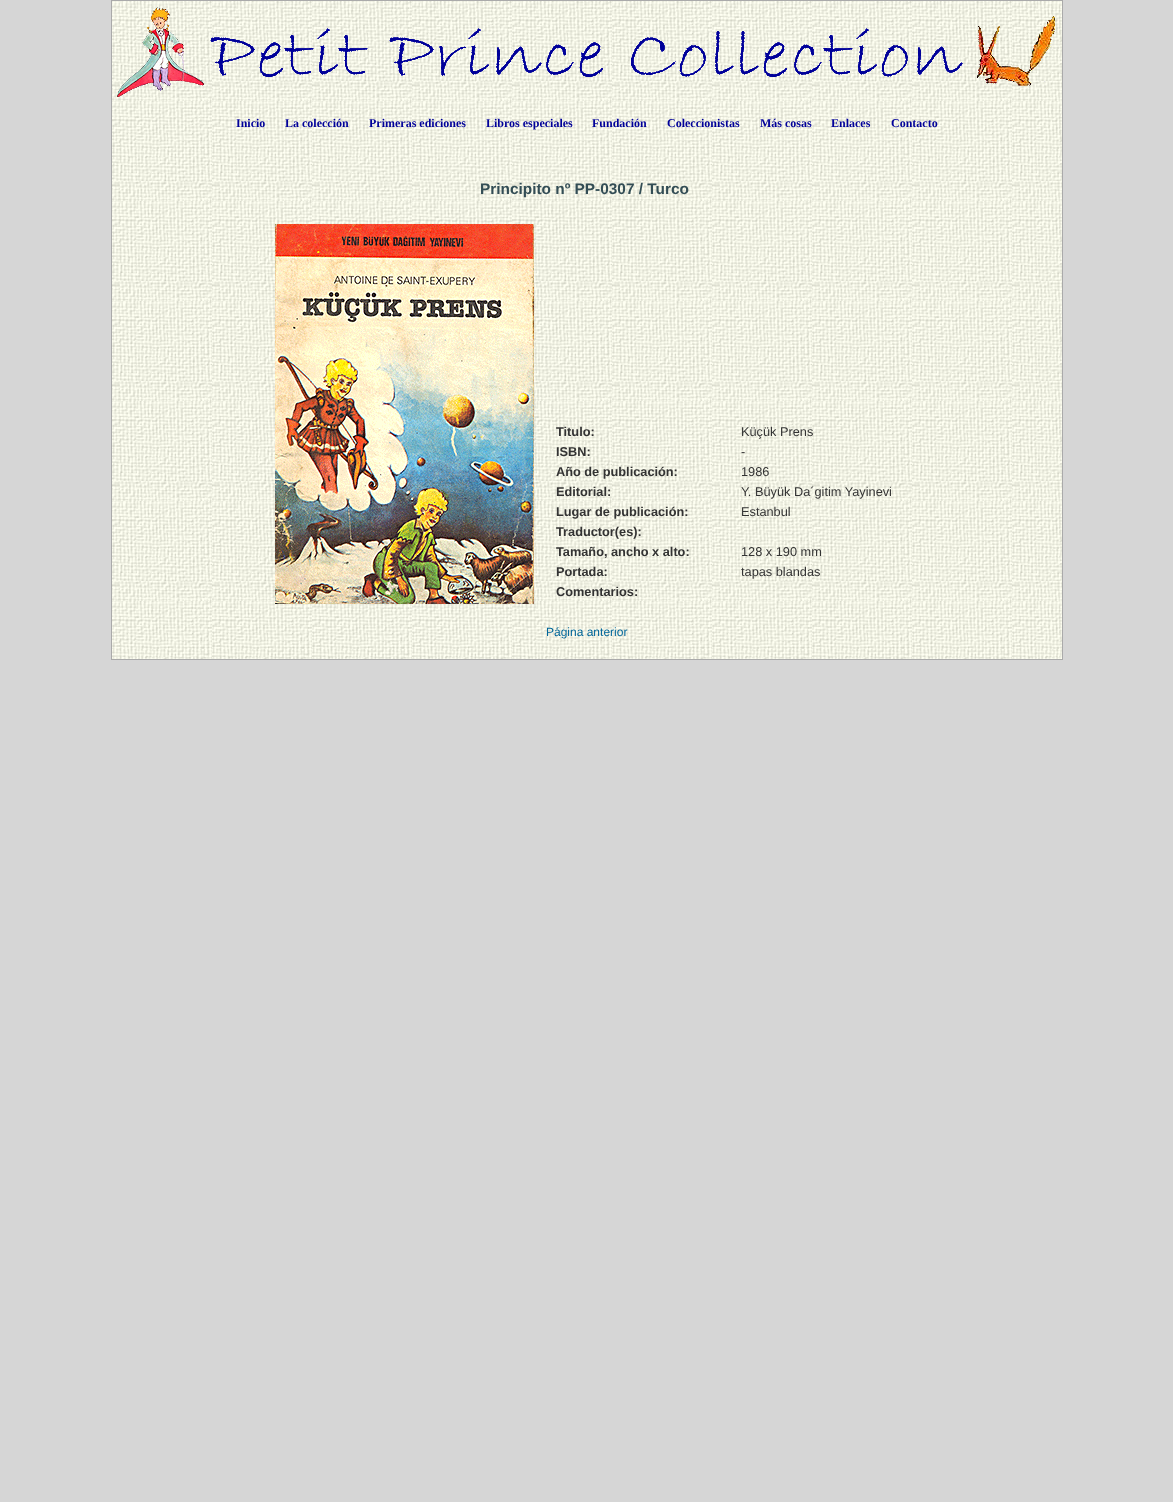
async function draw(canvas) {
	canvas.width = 1173;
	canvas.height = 1502;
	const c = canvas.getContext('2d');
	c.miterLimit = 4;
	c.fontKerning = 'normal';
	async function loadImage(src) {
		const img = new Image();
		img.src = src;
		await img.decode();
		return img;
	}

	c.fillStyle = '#d6d6d6';
	c.fillRect(0, 0, 1173, 1502);
	c.drawImage(await loadImage('img1.png'), 112, 1, 950, 658);
	c.strokeStyle = '#aaa';
	c.strokeRect(111.5, 0.5, 951, 659);
	c.drawImage(await loadImage('img2.png'), 117, 7, 938, 90);
	c.font = 'bold 12px Liberation Serif';
	c.fillStyle = '#009';
	for (const [text, x, y] of [
		['Inicio', 236, 127],
		['La colección', 285, 127],
		['Primeras ediciones', 369, 127],
		['Libros especiales', 486, 127],
		['Fundación', 592, 127],
		['Coleccionistas', 667, 127],
		['Más cosas', 760, 127],
		['Enlaces', 831, 127],
		['Contacto', 891, 127],
	]) {
		c.fillText(text, x, y);
	}
	c.font = 'bold 15.4px Liberation Sans';
	c.fillStyle = '#334d55';
	c.fillText('Principito nº PP-0307 / Turco', 480, 194);
	c.drawImage(await loadImage('img3.png'), 275, 224, 259, 380);
	c.font = 'bold 12.75px Liberation Sans';
	c.fillStyle = '#333';
	c.fillText('Titulo:', 556, 436);
	c.font = '12.75px Liberation Sans';
	c.fillText('Küçük Prens', 741, 436);
	c.font = 'bold 12.75px Liberation Sans';
	c.fillText('ISBN:', 556, 456);
	c.font = '12.75px Liberation Sans';
	c.fillText('-', 741, 456);
	c.font = 'bold 12.75px Liberation Sans';
	c.fillText('Año de publicación:', 556, 476);
	c.font = '12.75px Liberation Sans';
	c.fillText('1986', 741, 476);
	c.font = 'bold 12.75px Liberation Sans';
	c.fillText('Editorial:', 556, 496);
	c.font = '12.75px Liberation Sans';
	c.fillText('Y. Büyük Da´gitim Yayinevi', 741, 496);
	c.font = 'bold 12.75px Liberation Sans';
	c.fillText('Lugar de publicación:', 556, 516);
	c.font = '12.75px Liberation Sans';
	c.fillText('Estanbul', 741, 516);
	c.font = 'bold 12.75px Liberation Sans';
	c.fillText('Traductor(es):', 556, 536);
	c.fillText('Tamaño, ancho x alto:', 556, 556);
	c.font = '12.75px Liberation Sans';
	c.fillText('128 x 190 mm', 741, 556);
	c.font = 'bold 12.75px Liberation Sans';
	c.fillText('Portada:', 556, 576);
	c.font = '12.75px Liberation Sans';
	c.fillText('tapas blandas', 741, 576);
	c.font = 'bold 12.75px Liberation Sans';
	c.fillText('Comentarios:', 556, 596);
	c.font = '12px Liberation Sans';
	c.fillStyle = '#069';
	c.fillText('Página anterior', 546, 636);
}

draw(document.querySelector('canvas'));
